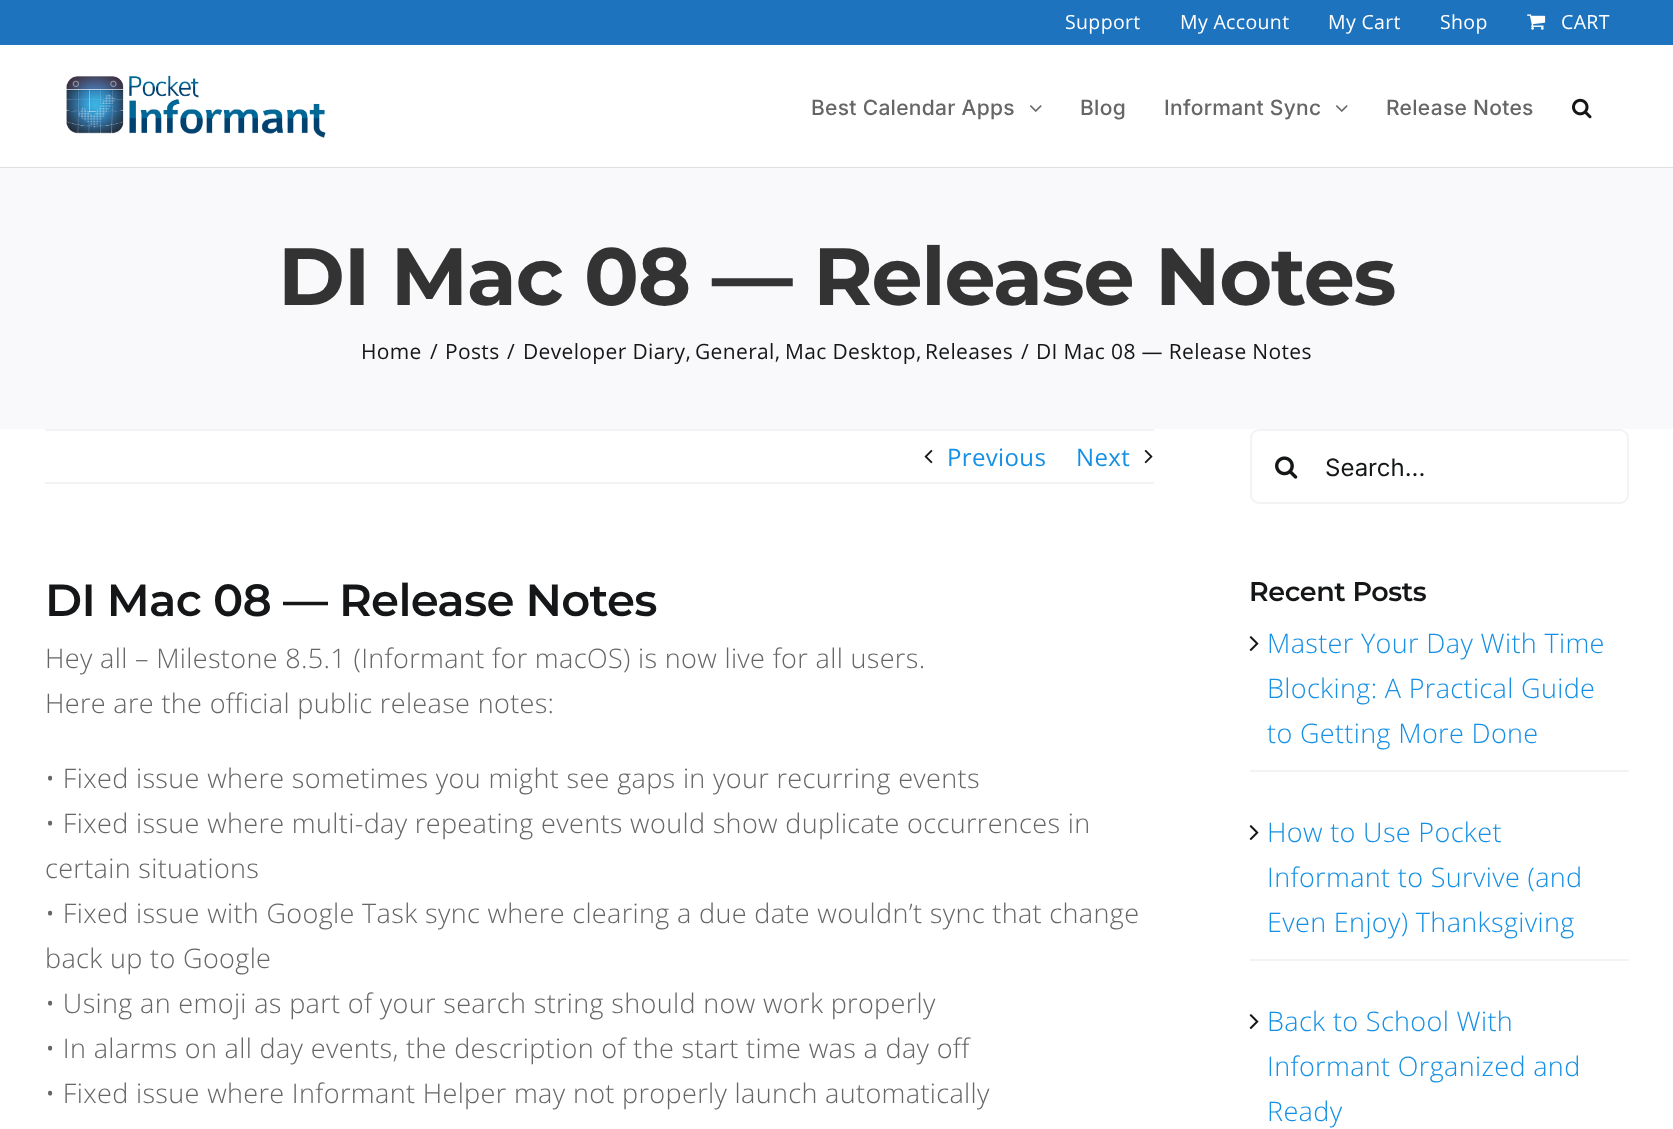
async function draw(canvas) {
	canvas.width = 1673;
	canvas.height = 1129;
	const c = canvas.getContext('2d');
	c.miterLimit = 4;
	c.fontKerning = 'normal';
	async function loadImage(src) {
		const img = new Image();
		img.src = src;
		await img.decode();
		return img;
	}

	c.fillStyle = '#fff';
	c.fillRect(0, 0, 1673, 1129);
	c.fillStyle = '#1e73be';
	c.fillRect(0, 0, 1673, 45);
	c.letterSpacing = '0.35px';
	c.font = '19.5px Open Sans';
	c.fillStyle = '#fff';
	for (const [text, x, y] of [
		['Support', 1065, 29],
		['My Account', 1180, 29],
		['My Cart', 1328, 29],
		['Shop', 1440, 29],
	]) {
		c.fillText(text, x, y);
	}
	c.drawImage(await loadImage('img1.png'), 1527, 14, 19, 16);
	c.fillText('CART', 1561, 29);
	c.drawImage(await loadImage('img2.png'), 66, 75, 260, 63);
	c.letterSpacing = '0.3px';
	c.font = '500 21px Inter';
	c.fillStyle = '#666';
	c.fillText('Best Calendar Apps', 811, 115);
	c.drawImage(await loadImage('img3.png'), 1030, 105, 12, 7);
	c.fillText('Blog', 1080, 115);
	c.fillText('Informant Sync', 1164, 115);
	c.drawImage(await loadImage('img3.png'), 1336, 105, 12, 7);
	c.fillText('Release Notes', 1386, 115);
	c.drawImage(await loadImage('img4.png'), 1572, 98, 20, 21);
	c.fillStyle = '#f9f9fb';
	c.fillRect(0, 168, 1673, 261);
	c.fillStyle = '#e0e0e2';
	c.fillRect(0, 167, 1673, 1);
	c.letterSpacing = '-1.25px';
	c.font = 'bold 81px Montserrat';
	c.fillStyle = '#333';
	c.fillText('DI Mac 08 — Release Notes', 278, 305);
	c.letterSpacing = '0.35px';
	c.font = '21px Open Sans';
	c.fillStyle = '#141617';
	for (const [text, x, y] of [
		['Home', 361, 359],
		['/', 430, 359],
		['Posts', 445, 359],
		['/', 507, 359],
		['Developer Diary,', 523, 359],
		['General,', 695, 359],
		['Mac Desktop,', 785, 359],
		['Releases', 925, 359],
		['/', 1021, 359],
		['DI Mac 08 — Release Notes', 1036, 359],
	]) {
		c.fillText(text, x, y);
	}
	c.fillStyle = '#f2f3f5';
	c.fillRect(45, 429, 1109, 2);
	c.fillRect(45, 482, 1109, 2);
	c.drawImage(await loadImage('img5.png'), 924, 449, 9, 15);
	c.font = '24px Open Sans';
	c.fillStyle = '#1590e4';
	c.fillText('Previous', 947, 466);
	c.fillText('Next', 1076, 466);
	c.drawImage(await loadImage('img6.png'), 1144, 449, 9, 15);
	c.letterSpacing = '-0.7px';
	c.font = '600 45px Montserrat';
	c.fillStyle = '#141617';
	c.fillText('DI Mac 08 — Release Notes', 45, 616);
	c.letterSpacing = '0.35px';
	c.font = '300 27px Open Sans';
	c.fillStyle = '#666';
	for (const [text, x, y] of [
		['Hey all – Milestone 8.5.1 (Informant for macOS) is now live for all users.', 45, 668],
		['Here are the official public release notes:', 45, 713],
		['• Fixed issue where sometimes you might see gaps in your recurring events', 45, 788],
		['• Fixed issue where multi-day repeating events would show duplicate occurrences in', 45, 833],
		['certain situations', 45, 878],
		['• Fixed issue with Google Task sync where clearing a due date wouldn’t sync that change', 45, 923],
		['back up to Google', 45, 968],
		['• Using an emoji as part of your search string should now work properly', 45, 1013],
		['• In alarms on all day events, the description of the start time was a day off', 45, 1058],
		['• Fixed issue where Informant Helper may not properly launch automatically', 45, 1103],
	]) {
		c.fillText(text, x, y);
	}
	c.beginPath();
	c.roundRect(1251, 430, 377, 73, 8);
	c.strokeStyle = '#f2f3f5';
	c.lineWidth = 2;
	c.stroke();
	c.drawImage(await loadImage('img7.png'), 1275, 456, 23, 23);
	c.letterSpacing = '0px';
	c.font = '24px Inter';
	c.fillStyle = '#141617';
	c.fillText('Search...', 1325, 476);
	c.letterSpacing = '-0.4px';
	c.font = '600 27px Montserrat';
	c.fillText('Recent Posts', 1249, 601);
	c.fillStyle = '#f2f3f5';
	c.fillRect(1250, 770, 379, 2);
	c.drawImage(await loadImage('img8.png'), 1249, 636, 10, 15);
	c.letterSpacing = '0.35px';
	c.font = '300 27px Open Sans';
	c.fillStyle = '#1590e4';
	for (const [text, x, y] of [
		['Master Your Day With Time', 1267, 653],
		['Blocking: A Practical Guide', 1267, 698],
		['to Getting More Done', 1267, 743],
	]) {
		c.fillText(text, x, y);
	}
	c.fillStyle = '#f2f3f5';
	c.fillRect(1250, 959, 379, 2);
	c.drawImage(await loadImage('img8.png'), 1249, 825, 10, 15);
	c.fillStyle = '#1590e4';
	for (const [text, x, y] of [
		['How to Use Pocket', 1267, 842],
		['Informant to Survive (and', 1267, 887],
		['Even Enjoy) Thanksgiving', 1267, 932],
	]) {
		c.fillText(text, x, y);
	}
	c.drawImage(await loadImage('img8.png'), 1249, 1014, 10, 15);
	for (const [text, x, y] of [
		['Back to School With', 1267, 1031],
		['Informant Organized and', 1267, 1076],
		['Ready', 1267, 1121],
	]) {
		c.fillText(text, x, y);
	}
}

draw(document.querySelector('canvas'));
